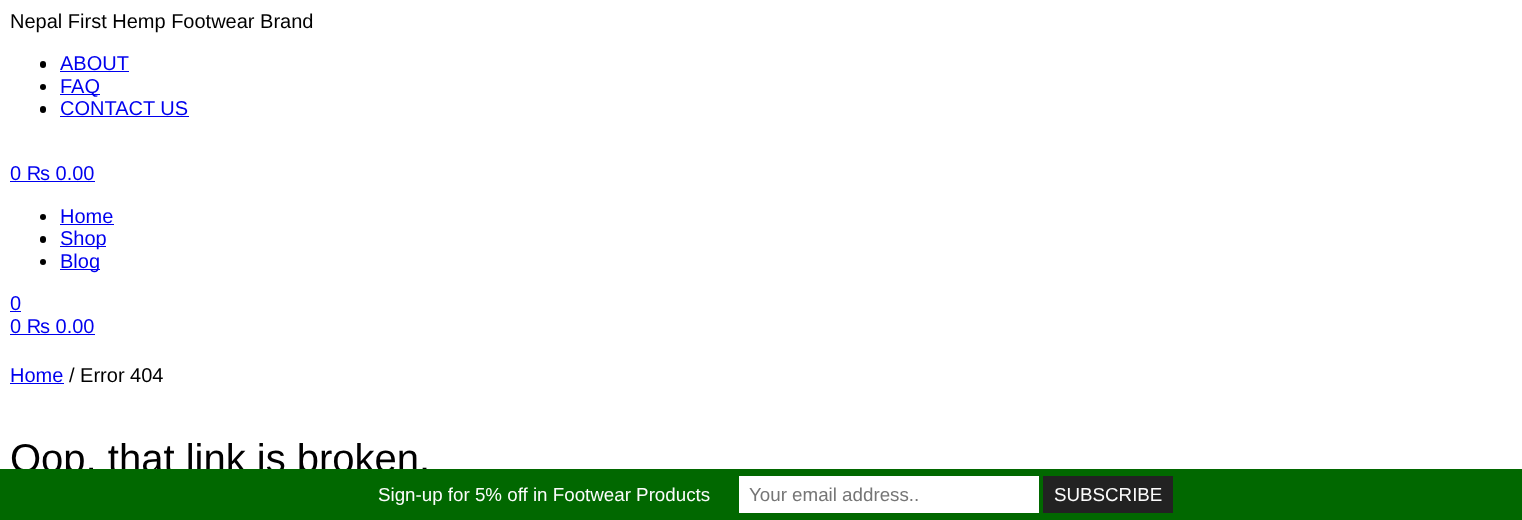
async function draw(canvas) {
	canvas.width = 1522;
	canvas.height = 520;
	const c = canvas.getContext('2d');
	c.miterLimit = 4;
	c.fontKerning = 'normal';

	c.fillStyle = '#fff';
	c.fillRect(0, 0, 1522, 520);
	c.font = '20px Liberation Sans';
	c.fillStyle = '#000';
	c.fillText('Nepal First Hemp Footwear Brand', 10, 28);
	c.beginPath();
	c.roundRect(40, 61, 6, 7, 3);
	c.fill();
	c.fillStyle = '#00e';
	c.fillText('ABOUT', 60, 70);
	c.fillRect(60, 71, 69, 1);
	c.fillStyle = '#000';
	c.beginPath();
	c.arc(43, 87, 3, 0, 2 * Math.PI);
	c.fill();
	c.fillStyle = '#00e';
	c.fillRect(60, 94, 40, 1);
	c.fillText('FAQ', 60, 93);
	c.fillStyle = '#000';
	c.beginPath();
	c.roundRect(40, 106, 6, 7, 3);
	c.fill();
	c.fillStyle = '#00e';
	c.fillText('CONTACT US', 60, 115);
	c.fillRect(60, 116, 129, 1);
	c.fillText('0 ₨ 0.00', 10, 180);
	c.fillRect(10, 181, 85, 1);
	c.fillStyle = '#000';
	c.beginPath();
	c.arc(43, 217, 3, 0, 2 * Math.PI);
	c.fill();
	c.fillStyle = '#00e';
	c.fillText('Home', 60, 223);
	c.fillRect(60, 224, 54, 1);
	c.fillStyle = '#000';
	c.beginPath();
	c.roundRect(40, 236, 6, 7, 3);
	c.fill();
	c.fillStyle = '#00e';
	c.fillRect(60, 246, 46, 1);
	c.fillText('Shop', 60, 245);
	c.fillStyle = '#000';
	c.beginPath();
	c.arc(43, 262, 3, 0, 2 * Math.PI);
	c.fill();
	c.fillStyle = '#00e';
	c.fillRect(60, 269, 40, 1);
	c.fillText('Blog', 60, 268);
	c.fillText('0', 10, 310);
	c.fillRect(10, 311, 11, 1);
	c.fillText('0 ₨ 0.00', 10, 333);
	c.fillRect(10, 334, 85, 1);
	c.fillText('Home', 10, 382);
	c.fillRect(10, 383, 54, 1);
	c.fillStyle = '#000';
	c.fillText('/ Error 404', 69, 382);
	c.font = '40px Liberation Sans';
	c.fillText('Oop, that link is broken.', 10, 472);
	c.fillStyle = '#016800';
	c.fillRect(0, 469, 1522, 51);
	c.font = '18.75px Liberation Sans';
	c.fillStyle = '#fcfcfc';
	c.fillText('Sign-up for 5% off in Footwear Products', 378, 501);
	c.fillStyle = '#fff';
	c.fillRect(739, 476, 300, 37);
	c.fillStyle = '#757575';
	c.fillText('Your email address..', 749, 501);
	c.fillStyle = '#222';
	c.fillRect(1043, 476, 130, 37);
	c.fillStyle = '#fcfcfc';
	c.fillText('SUBSCRIBE', 1054, 501);
}

draw(document.querySelector('canvas'));
